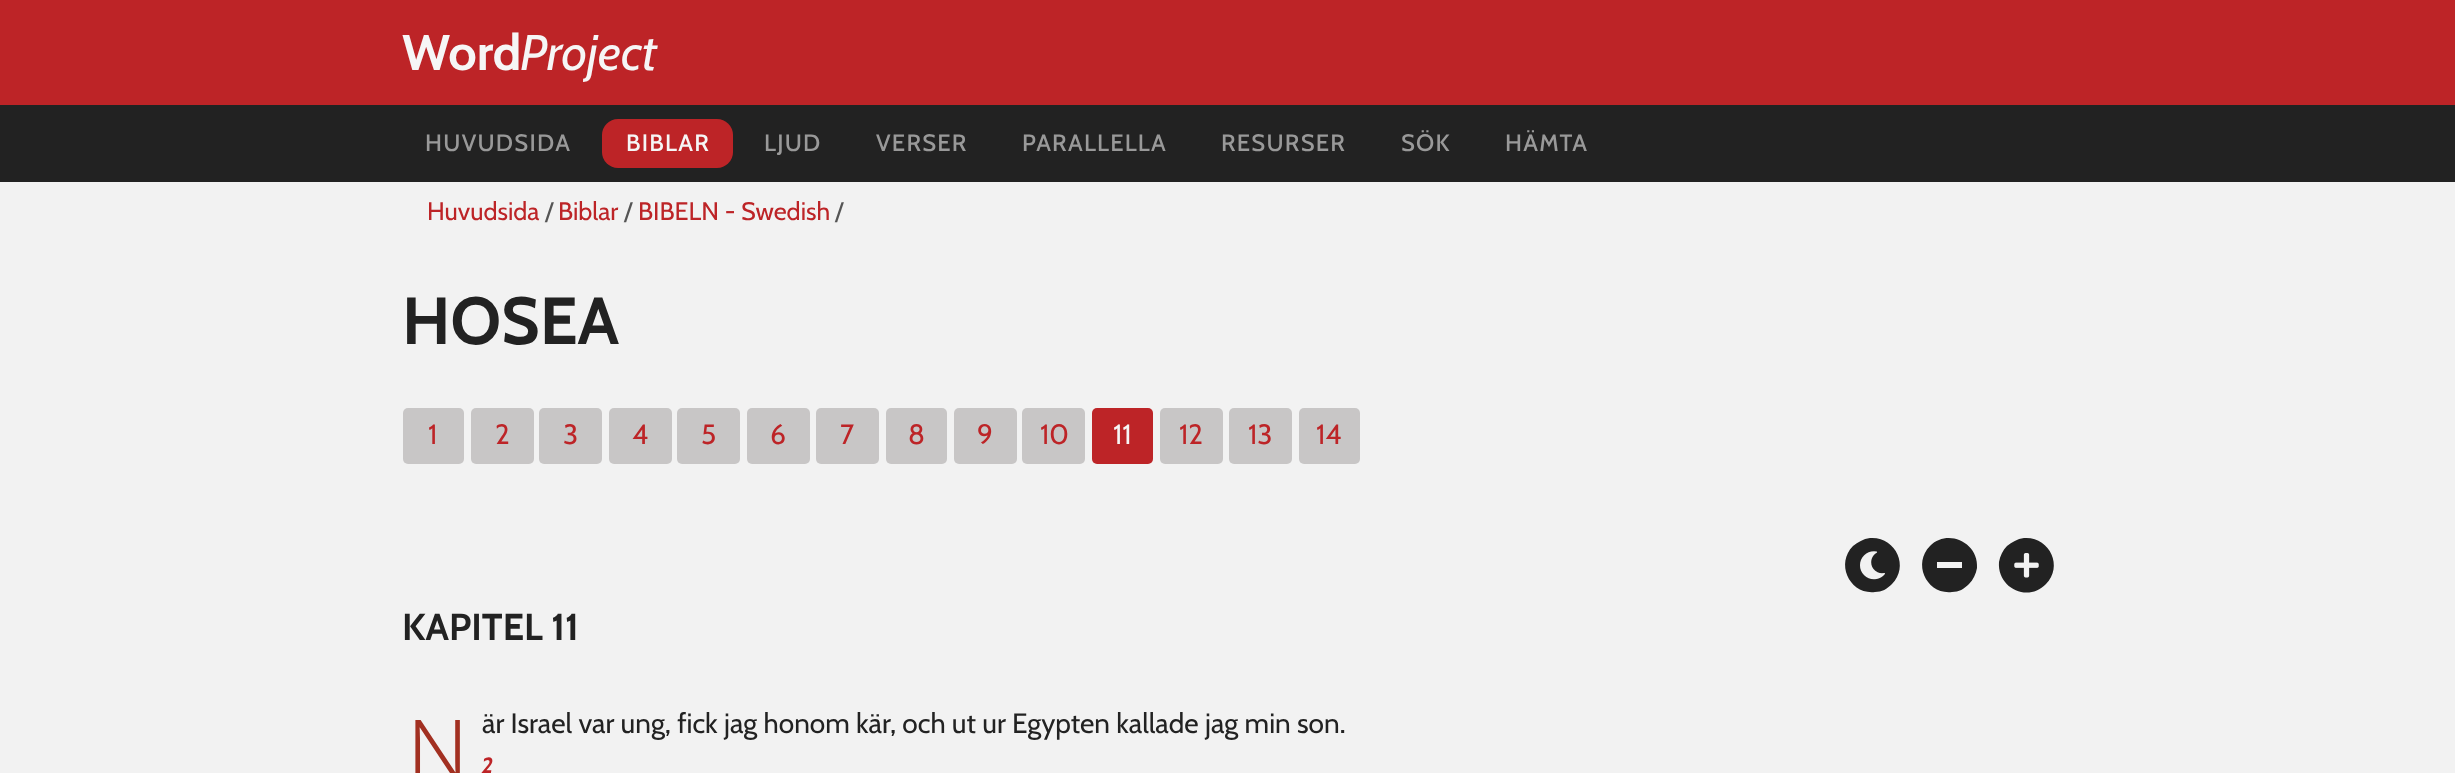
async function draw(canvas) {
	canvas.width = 2455;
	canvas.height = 773;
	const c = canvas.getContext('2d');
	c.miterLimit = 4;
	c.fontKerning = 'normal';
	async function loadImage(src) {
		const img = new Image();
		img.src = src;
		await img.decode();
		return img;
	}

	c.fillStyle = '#f2f2f2';
	c.fillRect(0, 0, 2455, 773);
	c.fillStyle = '#bd2427';
	c.fillRect(0, 0, 2455, 105);
	c.font = 'bold 50px Cabin';
	c.fillStyle = '#f6f6f6';
	c.fillText('Word', 402, 70);
	c.font = 'italic 50px Cabin';
	c.fillText('Project', 520, 70);
	c.fillStyle = '#222';
	c.fillRect(0, 105, 2455, 77);
	c.letterSpacing = '1.25px';
	c.font = '500 23.75px Cabin';
	c.fillStyle = '#999';
	c.fillText('HUVUDSIDA', 425, 151);
	c.fillStyle = '#bd2427';
	c.beginPath();
	c.roundRect(602, 119, 131, 49, 16);
	c.fill();
	c.fillStyle = '#f6f6f6';
	c.fillText('BIBLAR', 626, 151);
	c.fillStyle = '#999';
	for (const [text, x, y] of [
		['LJUD', 764, 151],
		['VERSER', 876, 151],
		['PARALLELLA', 1022, 151],
		['RESURSER', 1221, 151],
		['SÖK', 1401, 151],
		['HÄMTA', 1505, 151],
	]) {
		c.fillText(text, x, y);
	}
	c.letterSpacing = '0px';
	c.font = '25.25px Cabin';
	c.fillStyle = '#bd2427';
	c.fillText('Huvudsida', 427, 220);
	c.fillStyle = '#555';
	c.fillText('/', 545, 220);
	c.fillStyle = '#bd2427';
	c.fillText('Biblar', 558, 220);
	c.fillStyle = '#555';
	c.fillText('/', 624, 220);
	c.fillStyle = '#bd2427';
	c.fillText('BIBELN - Swedish', 638, 220);
	c.fillStyle = '#555';
	c.fillText('/', 835, 220);
	c.font = 'bold 66.5px Cabin';
	c.fillStyle = '#222';
	c.fillText('HOSEA', 402, 344);
	c.fillStyle = '#c8c6c6';
	c.beginPath();
	c.roundRect(403, 408, 61, 56, 5);
	c.fill();
	c.font = '28px Cabin';
	c.fillStyle = '#bd2427';
	c.fillText('1', 428, 444);
	c.fillStyle = '#c8c6c6';
	c.beginPath();
	c.roundRect(471, 408, 63, 56, 5);
	c.fill();
	c.fillStyle = '#bd2427';
	c.fillText('2', 495, 444);
	c.fillStyle = '#c8c6c6';
	c.beginPath();
	c.roundRect(539, 408, 63, 56, 5);
	c.fill();
	c.fillStyle = '#bd2427';
	c.fillText('3', 563, 444);
	c.fillStyle = '#c8c6c6';
	c.beginPath();
	c.roundRect(609, 408, 63, 56, 5);
	c.fill();
	c.fillStyle = '#bd2427';
	c.fillText('4', 632, 444);
	c.fillStyle = '#c8c6c6';
	c.beginPath();
	c.roundRect(677, 408, 63, 56, 5);
	c.fill();
	c.fillStyle = '#bd2427';
	c.fillText('5', 701, 444);
	c.fillStyle = '#c8c6c6';
	c.beginPath();
	c.roundRect(747, 408, 63, 56, 5);
	c.fill();
	c.fillStyle = '#bd2427';
	c.fillText('6', 770, 444);
	c.fillStyle = '#c8c6c6';
	c.beginPath();
	c.roundRect(816, 408, 63, 56, 5);
	c.fill();
	c.fillStyle = '#bd2427';
	c.fillText('7', 840, 444);
	c.fillStyle = '#c8c6c6';
	c.beginPath();
	c.roundRect(886, 408, 61, 56, 5);
	c.fill();
	c.fillStyle = '#bd2427';
	c.fillText('8', 908, 444);
	c.fillStyle = '#c8c6c6';
	c.beginPath();
	c.roundRect(954, 408, 63, 56, 5);
	c.fill();
	c.fillStyle = '#bd2427';
	c.fillText('9', 977, 444);
	c.fillStyle = '#c8c6c6';
	c.beginPath();
	c.roundRect(1022, 408, 63, 56, 5);
	c.fill();
	c.fillStyle = '#bd2427';
	c.fillText('10', 1040, 444);
	c.beginPath();
	c.roundRect(1092, 408, 61, 56, 5);
	c.fill();
	c.fillStyle = '#f6f6f6';
	c.fillText('11', 1113, 444);
	c.fillStyle = '#c8c6c6';
	c.beginPath();
	c.roundRect(1160, 408, 63, 56, 5);
	c.fill();
	c.fillStyle = '#bd2427';
	c.fillText('12', 1179, 444);
	c.fillStyle = '#c8c6c6';
	c.beginPath();
	c.roundRect(1229, 408, 63, 56, 5);
	c.fill();
	c.fillStyle = '#bd2427';
	c.fillText('13', 1248, 444);
	c.fillStyle = '#c8c6c6';
	c.beginPath();
	c.roundRect(1299, 408, 61, 56, 5);
	c.fill();
	c.fillStyle = '#bd2427';
	c.fillText('14', 1316, 444);
	c.fillStyle = '#222';
	c.beginPath();
	c.moveTo(1853, 546);
	c.bezierCurveTo(1858, 542, 1863, 539, 1870, 538);
	c.bezierCurveTo(1895, 536, 1910, 566, 1892, 584);
	c.bezierCurveTo(1887, 589, 1882, 592, 1875, 592);
	c.bezierCurveTo(1850, 595, 1835, 564, 1853, 546);
	c.closePath();
	c.fill();
	c.drawImage(await loadImage('img1.png'), 1860, 551, 25, 29);
	c.beginPath();
	c.moveTo(1930, 546);
	c.bezierCurveTo(1948, 528, 1979, 543, 1977, 568);
	c.bezierCurveTo(1976, 574, 1973, 580, 1969, 584);
	c.bezierCurveTo(1964, 589, 1959, 592, 1952, 592);
	c.bezierCurveTo(1927, 595, 1912, 564, 1930, 546);
	c.closePath();
	c.fill();
	c.fillStyle = '#f2f2f2';
	c.fillRect(1937, 562, 25, 6);
	c.fillStyle = '#222';
	c.beginPath();
	c.moveTo(2007, 546);
	c.bezierCurveTo(2012, 542, 2017, 539, 2024, 538);
	c.bezierCurveTo(2049, 536, 2064, 566, 2046, 584);
	c.bezierCurveTo(2028, 603, 1997, 588, 1999, 562);
	c.bezierCurveTo(2000, 556, 2003, 550, 2007, 546);
	c.closePath();
	c.fill();
	c.drawImage(await loadImage('img2.png'), 2014, 553, 25, 25);
	c.font = 'bold 37.5px Cabin';
	c.fillText('KAPITEL 11', 402, 640);
	c.font = '300 84px Noto Sans';
	c.fillStyle = '#a23021';
	c.fillText('N', 407, 780);
	c.font = '28px Cabin';
	c.fillStyle = '#222';
	c.fillText('är Israel var ung, fick jag honom kär, och ut ur Egypten kallade jag min son.', 482, 733);
	c.font = 'italic bold 22px Cabin';
	c.fillStyle = '#bd2427';
	c.fillText('2', 482, 773);
}

draw(document.querySelector('canvas'));
